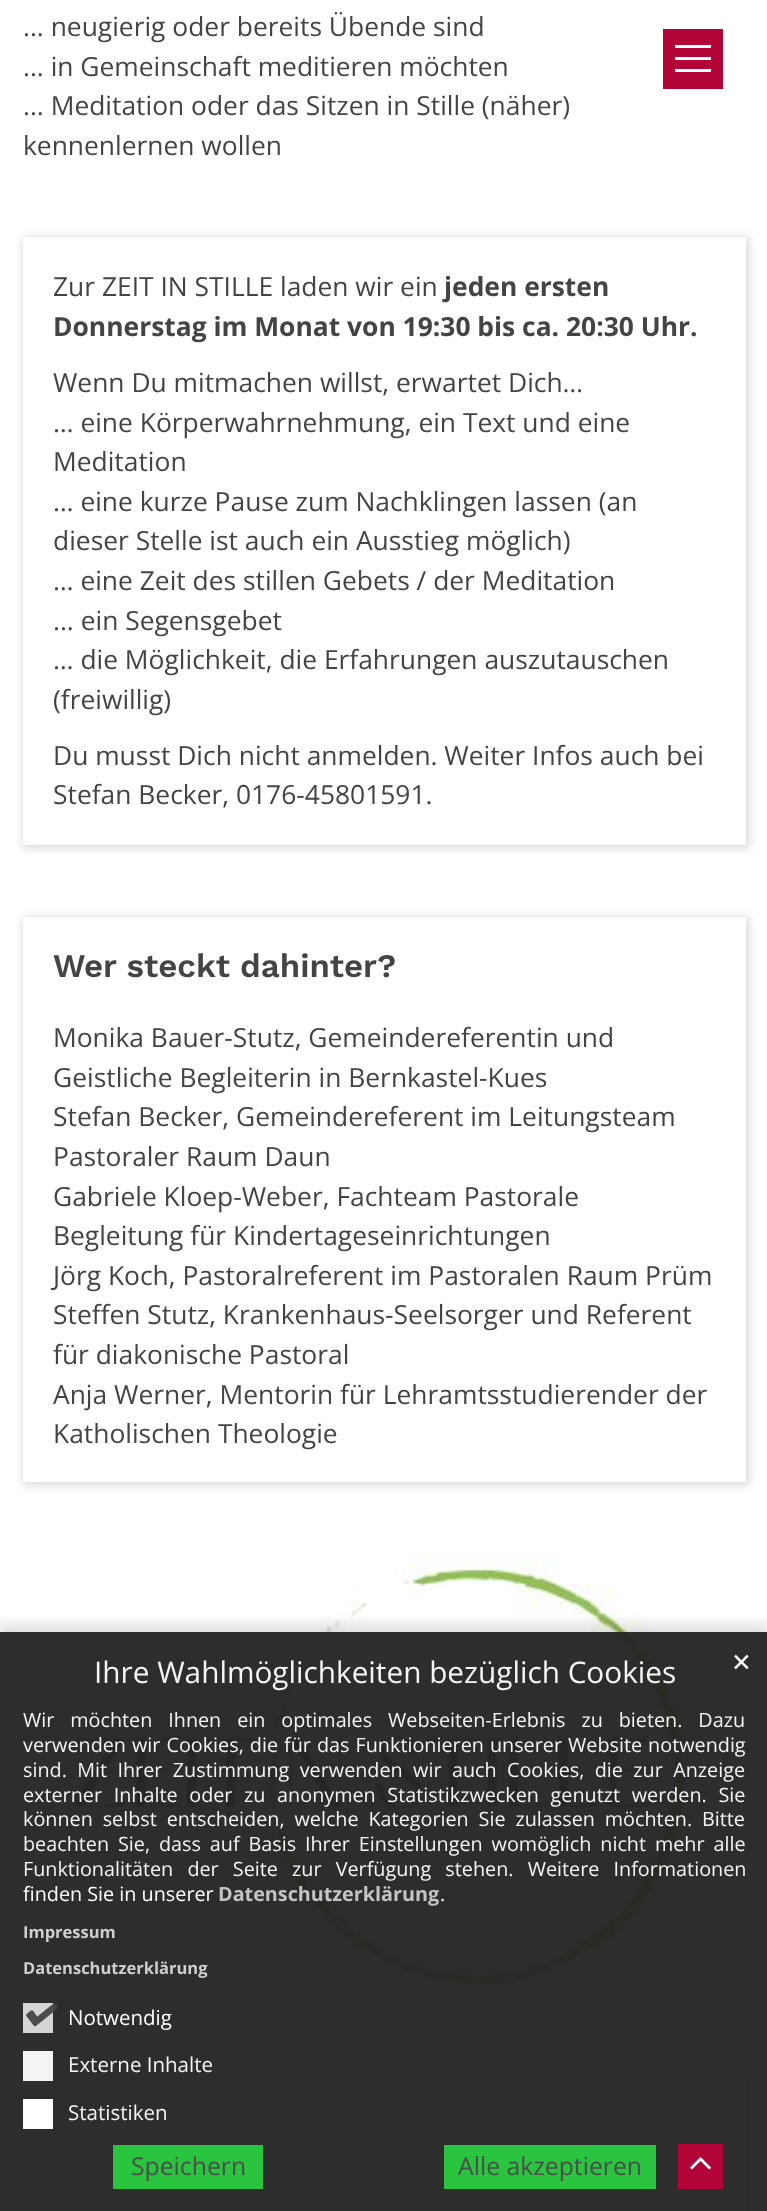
async function draw(canvas) {
	canvas.width = 767;
	canvas.height = 2211;
	const c = canvas.getContext('2d');
	c.miterLimit = 4;
	c.fontKerning = 'normal';
	async function loadImage(src) {
		const img = new Image();
		img.src = src;
		await img.decode();
		return img;
	}

	c.fillStyle = '#fff';
	c.fillRect(0, 0, 767, 2211);
	c.font = '26.4px Open Sans';
	c.fillStyle = '#444';
	for (const [text, x, y] of [
		['... neugierig oder bereits Übende sind', 23, 36],
		['... in Gemeinschaft meditieren möchten', 23, 76],
		['... Meditation oder das Sitzen in Stille (näher)', 23, 115],
		['kennenlernen wollen', 23, 155],
	]) {
		c.fillText(text, x, y);
	}
	c.fillStyle = '#00000026';
	c.filter = 'blur(5px)';
	c.beginPath();
	c.rect(23, 237, 726, 611);
	c.fill();
	c.filter = 'none';
	c.fillStyle = '#fff';
	c.fillRect(23, 237, 723, 608);
	c.fillStyle = '#444';
	c.fillText('Zur ZEIT IN STILLE laden wir ein', 53, 296);
	c.font = 'bold 26.4px Open Sans';
	c.fillText('jeden ersten', 444, 296);
	c.fillText('Donnerstag im Monat von 19:30 bis ca. 20:30 Uhr.', 53, 336);
	c.font = '26.4px Open Sans';
	for (const [text, x, y] of [
		['Wenn Du mitmachen willst, erwartet Dich…', 53, 392],
		['… eine Körperwahrnehmung, ein Text und eine', 53, 432],
		['Meditation', 53, 471],
		['… eine kurze Pause zum Nachklingen lassen (an', 53, 511],
		['dieser Stelle ist auch ein Ausstieg möglich)', 53, 550],
		['… eine Zeit des stillen Gebets / der Meditation', 53, 590],
		['... ein Segensgebet', 53, 630],
		['… die Möglichkeit, die Erfahrungen auszutauschen', 53, 669],
		['(freiwillig)', 53, 709],
		['Du musst Dich nicht anmelden. Weiter Infos auch bei', 53, 765],
		['Stefan Becker, 0176-45801591.', 53, 804],
	]) {
		c.fillText(text, x, y);
	}
	c.fillStyle = '#00000026';
	c.filter = 'blur(5px)';
	c.beginPath();
	c.rect(23, 917, 726, 568);
	c.fill();
	c.filter = 'none';
	c.fillStyle = '#fff';
	c.fillRect(23, 917, 723, 565);
	c.font = '600 33px Work Sans';
	c.fillStyle = '#444';
	c.fillText('Wer steckt dahinter?', 53, 977);
	c.font = '26.4px Open Sans';
	for (const [text, x, y] of [
		['Monika Bauer-Stutz, Gemeindereferentin und', 53, 1047],
		['Geistliche Begleiterin in Bernkastel-Kues', 53, 1087],
		['Stefan Becker, Gemeindereferent im Leitungsteam', 53, 1126],
		['Pastoraler Raum Daun', 53, 1166],
		['Gabriele Kloep-Weber, Fachteam Pastorale', 53, 1206],
		['Begleitung für Kindertageseinrichtungen', 53, 1245],
		['Jörg Koch, Pastoralreferent im Pastoralen Raum Prüm', 53, 1285],
		['Steffen Stutz, Krankenhaus-Seelsorger und Referent', 53, 1324],
		['für diakonische Pastoral', 53, 1364],
		['Anja Werner, Mentorin für Lehramtsstudierender der', 53, 1404],
		['Katholischen Theologie', 53, 1443],
	]) {
		c.fillText(text, x, y);
	}
	c.drawImage(await loadImage('img1.png'), 67, 1553, 640, 448);
	c.fillStyle = '#00000026';
	c.filter = 'blur(5px)';
	c.beginPath();
	c.rect(23, 2073, 726, 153);
	c.fill();
	c.filter = 'none';
	for (const [x, y, w, h, color] of [
		[23, 2073, 723, 138, '#fff'],
		[663, 29, 60, 60, '#b20437'],
		[675, 57, 36, 3, '#fff'],
		[675, 45, 36, 3, '#fff'],
		[675, 69, 36, 3, '#fff'],
	]) {
		c.fillStyle = color;
		c.fillRect(x, y, w, h);
	}
	c.save();
	c.beginPath();
	c.rect(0, 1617, 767, 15);
	c.clip();
	c.fillStyle = '#00000024';
	c.filter = 'blur(7.5px)';
	c.beginPath();
	c.rect(-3, 1625, 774, 585);
	c.fill();
	c.filter = 'none';
	c.restore();
	c.fillStyle = '#222222f2';
	c.fillRect(0, 1632, 767, 579);
	c.font = '29.75px Open Sans';
	c.fillStyle = '#f4f4f4';
	c.fillText('Ihre Wahlmöglichkeiten bezüglich Cookies', 94, 1683);
	c.font = '24.75px DejaVu Sans';
	c.fillStyle = '#fff';
	c.fillText('✕', 731, 1671);
	c.wordSpacing = '10.75px';
	c.font = '19.8px Open Sans';
	c.fillStyle = '#f4f4f4';
	c.fillText('Wir möchten Ihnen ein optimales Webseiten-Erlebnis zu bieten. Dazu', 23, 1727);
	c.wordSpacing = '0.9px';
	c.fillText('verwenden wir Cookies, die für das Funktionieren unserer Website notwendig', 23, 1752);
	c.wordSpacing = '5.25px';
	c.fillText('sind. Mit Ihrer Zustimmung verwenden wir auch Cookies, die zur Anzeige', 23, 1777);
	c.wordSpacing = '6.5px';
	c.fillText('externer Inhalte oder zu anonymen Statistikzwecken genutzt werden. Sie', 23, 1802);
	c.wordSpacing = '4.75px';
	c.fillText('können selbst entscheiden, welche Kategorien Sie zulassen möchten. Bitte', 23, 1826);
	c.wordSpacing = '3.75px';
	c.fillText('beachten Sie, dass auf Basis Ihrer Einstellungen womöglich nicht mehr alle', 23, 1851);
	c.wordSpacing = '9px';
	c.fillText('Funktionalitäten der Seite zur Verfügung stehen. Weitere Informationen', 23, 1876);
	c.wordSpacing = '0px';
	c.fillStyle = '#fff';
	c.fillText('finden Sie in unserer', 23, 1901);
	c.font = 'bold 19.8px Open Sans';
	c.fillStyle = '#c4c4c4';
	c.fillText('Datenschutzerklärung', 218, 1901);
	c.font = '19.8px Open Sans';
	c.fillStyle = '#fff';
	c.fillText('.', 440, 1901);
	c.font = 'bold 16.5px Open Sans';
	c.fillStyle = '#cfcfcf';
	c.fillText('Impressum', 23, 1938);
	c.fillText('Datenschutzerklärung', 23, 1974);
	c.fillStyle = '#d3d5d6';
	c.fillRect(23, 2003, 30, 30);
	c.drawImage(await loadImage('img2.png'), 26, 2003, 32, 24);
	c.font = '20.5px Open Sans';
	c.fillStyle = '#fff';
	c.fillText('Notwendig', 68, 2025);
	c.fillStyle = '#f4f4f4';
	c.fillRect(23, 2051, 30, 30);
	c.fillText('Externe Inhalte', 68, 2072);
	c.fillStyle = '#fff';
	c.fillRect(23, 2099, 30, 30);
	c.fillStyle = '#f4f4f4';
	c.fillText('Statistiken', 68, 2120);
	c.fillStyle = '#29ce3ff2';
	c.fillRect(113, 2145, 150, 44);
	c.font = '24.75px Open Sans';
	c.fillStyle = '#4d4d4d';
	c.fillText('Speichern', 131, 2175);
	c.fillStyle = '#29ce3ff2';
	c.fillRect(444, 2145, 212, 44);
	c.fillStyle = '#4d4d4d';
	c.fillText('Alle akzeptieren', 458, 2175);
	c.fillStyle = '#b20437';
	c.fillRect(678, 2144, 45, 45);
	c.drawImage(await loadImage('img3.png'), 690, 2157, 21, 13);
}

draw(document.querySelector('canvas'));
